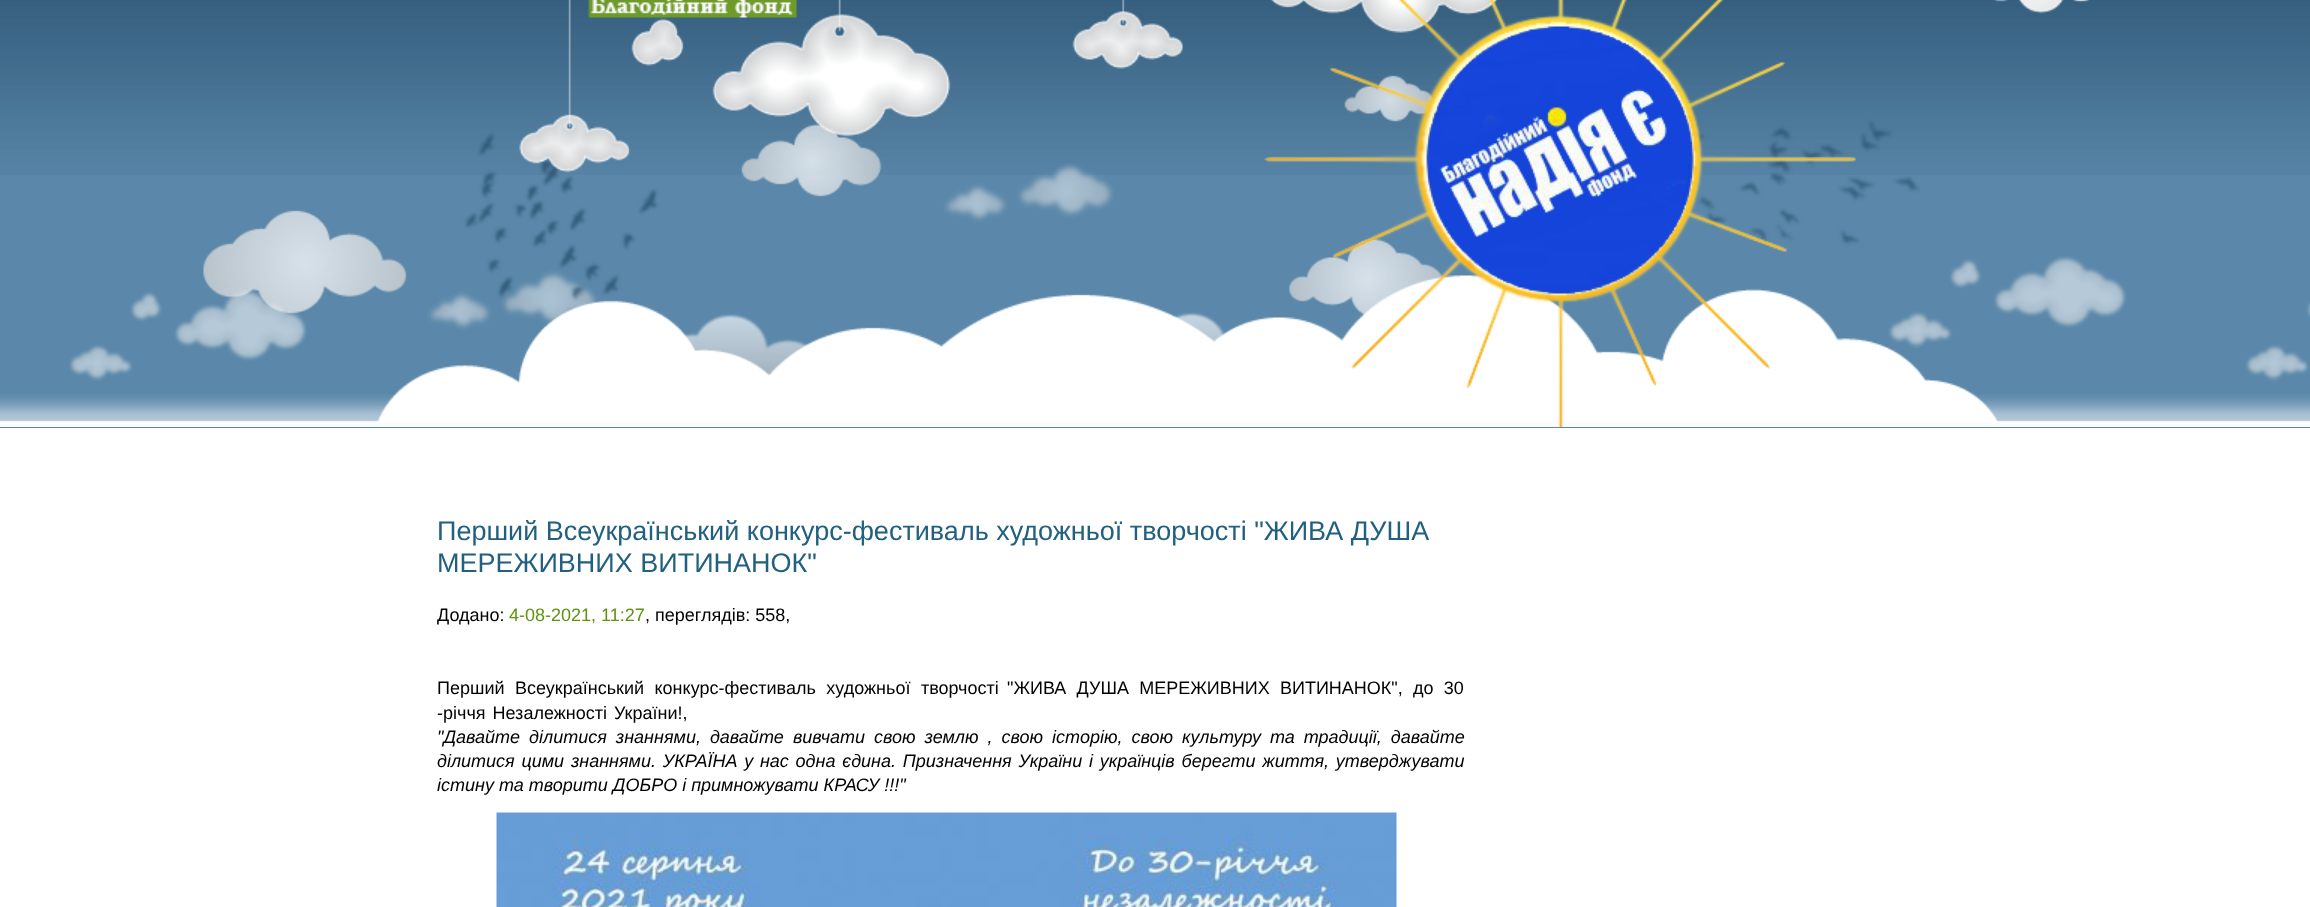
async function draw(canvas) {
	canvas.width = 2310;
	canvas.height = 907;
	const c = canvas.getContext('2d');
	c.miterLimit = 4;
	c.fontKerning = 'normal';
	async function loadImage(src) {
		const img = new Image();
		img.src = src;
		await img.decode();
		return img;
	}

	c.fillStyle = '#fff';
	c.fillRect(0, 0, 2310, 907);
	c.fillStyle = '#5b88aa';
	c.fillRect(0, 175, 2310, 253);
	c.drawImage(await loadImage('img1.png'), 0, 0, 2310, 175);
	c.drawImage(await loadImage('img2.png'), 69, 163, 2241, 218);
	c.drawImage(await loadImage('img3.png'), 203, 75, 1717, 240);
	c.drawImage(await loadImage('img4.png'), 519, 0, 1570, 173);
	c.drawImage(await loadImage('img5.png'), 0, 394, 2310, 33);
	c.drawImage(await loadImage('img6.png'), 377, 275, 1621, 147);
	c.drawImage(await loadImage('img7.png'), 587, 0, 210, 18);
	c.drawImage(await loadImage('img8.png'), 1264, 0, 592, 427);
	c.font = '27px Liberation Sans';
	c.fillStyle = '#21607f';
	c.fillText('Перший Всеукраїнський конкурс-фестиваль художньої творчості "ЖИВА ДУША', 437, 540);
	c.fillText('МЕРЕЖИВНИХ ВИТИНАНОК"', 437, 572);
	c.save();
	c.beginPath();
	c.rect(437, 471, 1027, 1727);
	c.clip();
	c.font = '18px Liberation Sans';
	c.fillStyle = '#000';
	c.fillText('Додано:', 437, 621);
	c.restore();
	c.font = '18px Liberation Sans';
	c.fillStyle = '#619210';
	c.fillText('4-08-2021, 11:27', 509, 621);
	c.fillStyle = '#000';
	c.fillText(', переглядів: 558,', 645, 621);
	c.wordSpacing = '5.5px';
	c.fillText('Перший Всеукраїнський конкурс-фестиваль художньої творчості', 437, 694);
	c.wordSpacing = '5.25px';
	c.fillText('"ЖИВА ДУША МЕРЕЖИВНИХ ВИТИНАНОК", до 30', 1007, 694);
	c.wordSpacing = '2px';
	c.fillText('-річчя Незалежності України!,', 437, 719);
	c.wordSpacing = '4px';
	c.font = 'italic 18px Liberation Sans';
	c.fillText('"Давайте ділитися знаннями, давайте вивчати свою землю , свою історію, свою культуру та традиції, давайте', 437, 743);
	c.wordSpacing = '1.75px';
	c.fillText('ділитися цими знаннями. УКРАЇНА у нас одна єдина. Призначення України і українців берегти життя, утверджувати', 437, 767);
	c.wordSpacing = '0px';
	c.fillText('істину та творити ДОБРО і примножувати КРАСУ !!!"', 437, 791);
	c.drawImage(await loadImage('img9.png'), 496, 812, 901, 95);
}

draw(document.querySelector('canvas'));
